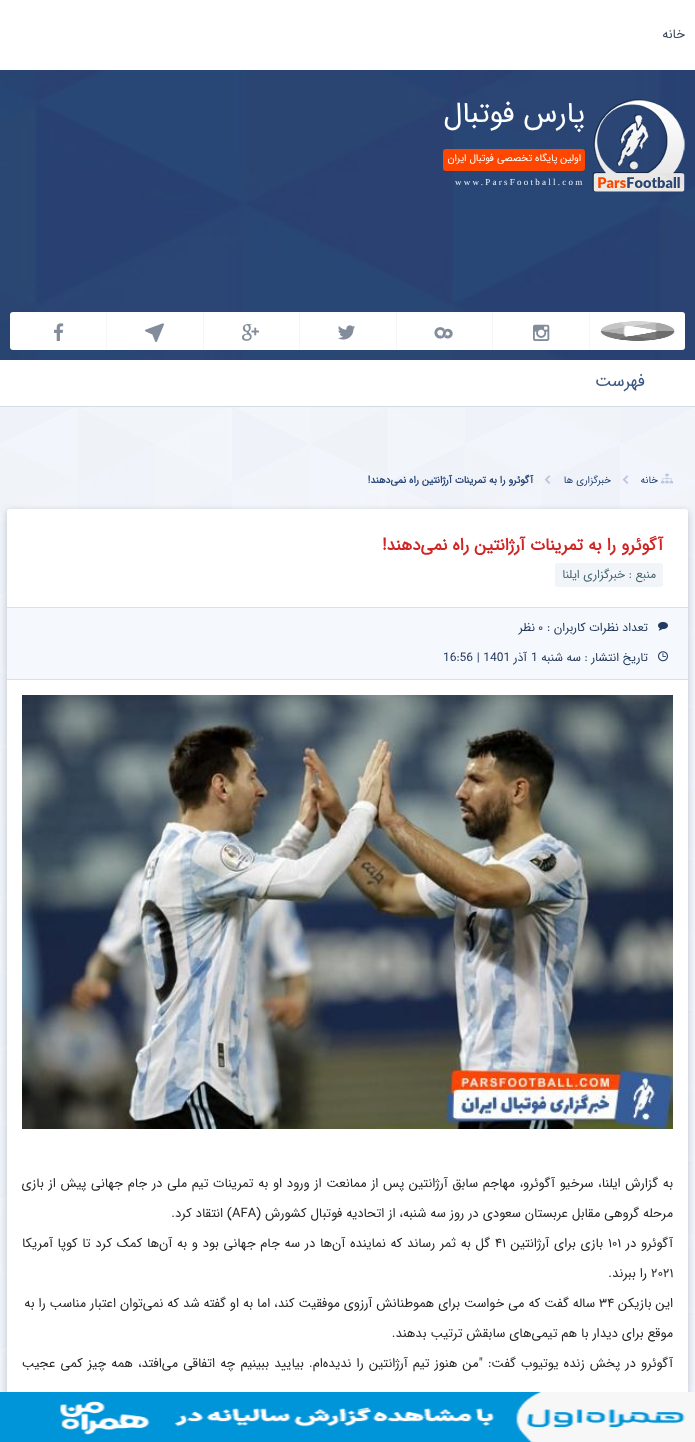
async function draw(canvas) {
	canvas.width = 695;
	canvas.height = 1442;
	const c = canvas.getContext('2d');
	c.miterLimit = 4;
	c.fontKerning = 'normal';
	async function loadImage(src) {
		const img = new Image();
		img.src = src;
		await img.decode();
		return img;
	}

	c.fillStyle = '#fff';
	c.fillRect(0, 0, 695, 1442);
	c.drawImage(await loadImage('img1.png'), 0, 70, 695, 290);
	c.direction = 'rtl';
	c.font = '13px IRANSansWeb';
	c.fillStyle = '#39465c';
	c.fillText('خانه', 685, 38);
	c.drawImage(await loadImage('img2.png'), 592, 99, 93, 93);
	c.font = '29px IRANSansWeb';
	c.fillStyle = '#fff';
	c.fillText('پارس فوتبال', 585, 122);
	c.fillStyle = '#fd4700';
	c.beginPath();
	c.roundRect(443, 149, 142, 22, 3);
	c.fill();
	c.font = '10px IRANSansWeb';
	c.fillStyle = '#fff';
	c.fillText('اولین پایگاه تخصصی فوتبال ایران', 581, 161);
	c.letterSpacing = '2.25px';
	c.direction = 'ltr';
	c.font = '9px Liberation Serif';
	c.fillStyle = '#f1f5fa';
	c.fillText('www.ParsFootball.com', 455, 185);
	c.fillStyle = '#fff';
	c.beginPath();
	c.roundRect(10, 312, 675, 38, 3);
	c.fill();
	c.fillStyle = '#f6f6f6';
	c.fillRect(589, 312, 1, 38);
	c.drawImage(await loadImage('img3.png'), 600, 321, 75, 20);
	c.fillStyle = '#f4f6f9';
	c.fillRect(492, 312, 1, 38);
	c.drawImage(await loadImage('img4.png'), 533, 324, 17, 17);
	c.fillRect(396, 312, 1, 38);
	c.drawImage(await loadImage('img5.png'), 434, 327, 19, 12);
	c.fillRect(299, 312, 1, 38);
	c.drawImage(await loadImage('img6.png'), 338, 325, 17, 15);
	c.fillRect(203, 312, 1, 38);
	c.drawImage(await loadImage('img7.png'), 242, 324, 18, 17);
	c.fillRect(106, 312, 1, 38);
	c.drawImage(await loadImage('img8.png'), 145, 323, 19, 19);
	c.drawImage(await loadImage('img9.png'), 54, 323, 10, 18);
	c.fillStyle = '#d5dbe5';
	c.fillRect(0, 406, 695, 1);
	c.letterSpacing = '0px';
	c.direction = 'rtl';
	c.font = '17px IRANSansWeb';
	c.fillStyle = '#3b5882';
	c.fillText('فهرست', 645, 386);
	c.drawImage(await loadImage('img10.png'), 0, 407, 695, 985);
	c.drawImage(await loadImage('img11.png'), 661, 473, 12, 11);
	c.font = '10px IRANSansWeb';
	c.fillStyle = '#244273';
	c.fillText('خانه', 658, 483);
	c.drawImage(await loadImage('img12.png'), 622, 475, 7, 9);
	c.fillText('خبرگزاری ها', 611, 483);
	c.drawImage(await loadImage('img13.png'), 544, 475, 7, 9);
	c.font = 'bold 10px IRANSansWeb';
	c.fillText('آگوئرو را به تمرینات آرژانتین راه نمی‌دهند!', 533, 483);
	c.fillStyle = '#46536c4d';
	c.filter = 'blur(3.5px)';
	c.beginPath();
	c.roundRect(7, 511, 681, 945, 3);
	c.fill();
	c.filter = 'none';
	c.fillStyle = '#fff';
	c.beginPath();
	c.roundRect(7, 509, 681, 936, 3);
	c.fill();
	c.font = 'bold 17px IRANSansWeb';
	c.fillStyle = '#d02525';
	c.fillText('آگوئرو را به تمرینات آرژانتین راه نمی‌دهند!', 663, 550);
	c.fillStyle = '#f1f5fa';
	c.beginPath();
	c.roundRect(555, 563, 108, 24, 3);
	c.fill();
	c.font = '12px IRANSansWeb';
	c.fillStyle = '#45666d';
	c.fillText('منبع : خبرگزاری ایلنا', 656, 578);
	for (const [x, y, w, h, color] of [
		[7, 608, 681, 71, '#f5f8fc'],
		[7, 607, 681, 1, '#d5e1f3'],
		[7, 679, 681, 1, '#d5e1f3'],
	]) {
		c.fillStyle = color;
		c.fillRect(x, y, w, h);
	}
	c.drawImage(await loadImage('img14.png'), 658, 622, 10, 9);
	c.fillStyle = '#23395d';
	c.fillText('تعداد نظرات کاربران :', 648, 631);
	c.direction = 'ltr';
	c.fillText('۰', 538, 631);
	c.direction = 'rtl';
	c.fillText('نظر', 535, 631);
	c.drawImage(await loadImage('img15.png'), 658, 651, 10, 11);
	c.fillText('تاریخ انتشار : سه شنبه', 648, 661);
	c.direction = 'ltr';
	c.fillText('1', 531, 661);
	c.direction = 'rtl';
	c.fillText('آذر', 527, 661);
	c.direction = 'ltr';
	c.fillText('16:56 | 1401', 443, 661);
	c.drawImage(await loadImage('img16.png'), 22, 695, 651, 434);
	c.wordSpacing = '0.75px';
	c.direction = 'rtl';
	c.font = '13px IRANSansWeb';
	c.fillStyle = '#252525';
	c.fillText('به گزارش ایلنا، سرخیو آگوئرو، مهاجم سابق آرژانتین پس از ممانعت از ورود او به تمرینات تیم ملی در جام جهانی پیش از بازی', 673, 1187);
	c.wordSpacing = '0px';
	c.fillText('مرحله گروهی مقابل عربستان سعودی در روز سه شنبه، از اتحادیه فوتبال کشورش (', 673, 1217);
	c.direction = 'ltr';
	c.fillText('AFA', 232, 1217);
	c.direction = 'rtl';
	c.fillText(') انتقاد کرد.', 232, 1217);
	c.wordSpacing = '0.75px';
	c.fillText('آگوئرو در', 673, 1247);
	c.wordSpacing = '0px';
	c.direction = 'ltr';
	c.fillText('۱۰۱', 608, 1247);
	c.wordSpacing = '0.75px';
	c.direction = 'rtl';
	c.fillText('بازی برای آرژانتین', 603, 1247);
	c.wordSpacing = '0px';
	c.direction = 'ltr';
	c.fillText('۴۱', 495, 1247);
	c.wordSpacing = '0.75px';
	c.direction = 'rtl';
	c.fillText('گل به ثمر رساند که نماینده آن‌ها در سه جام جهانی بود و به آن‌ها کمک کرد تا کوپا آمریکا', 490, 1247);
	c.wordSpacing = '0px';
	c.direction = 'ltr';
	c.fillText('۲۰۲۱', 651, 1277);
	c.direction = 'rtl';
	c.fillText('را ببرند.', 647, 1277);
	c.fillText('این بازیکن', 673, 1307);
	c.direction = 'ltr';
	c.fillText('۳۴', 599, 1307);
	c.direction = 'rtl';
	c.fillText('ساله گفت که می خواست برای هموطنانش آرزوی موفقیت کند، اما به او گفته شد که نمی‌توان اعتبار مناسب را به', 595, 1307);
	c.fillText('موقع برای دیدار با هم تیمی‌های سابقش ترتیب بدهند.', 673, 1337);
	c.wordSpacing = '1.2px';
	c.fillText('آگوئرو در پخش زنده یوتیوب گفت: "من هنوز تیم آرژانتین را ندیده‌ام. بیایید ببینیم چه اتفاقی می‌افتد، همه چیز کمی عجیب', 673, 1367);
	c.drawImage(await loadImage('img17.png'), 0, 1392, 695, 50);
}

draw(document.querySelector('canvas'));
